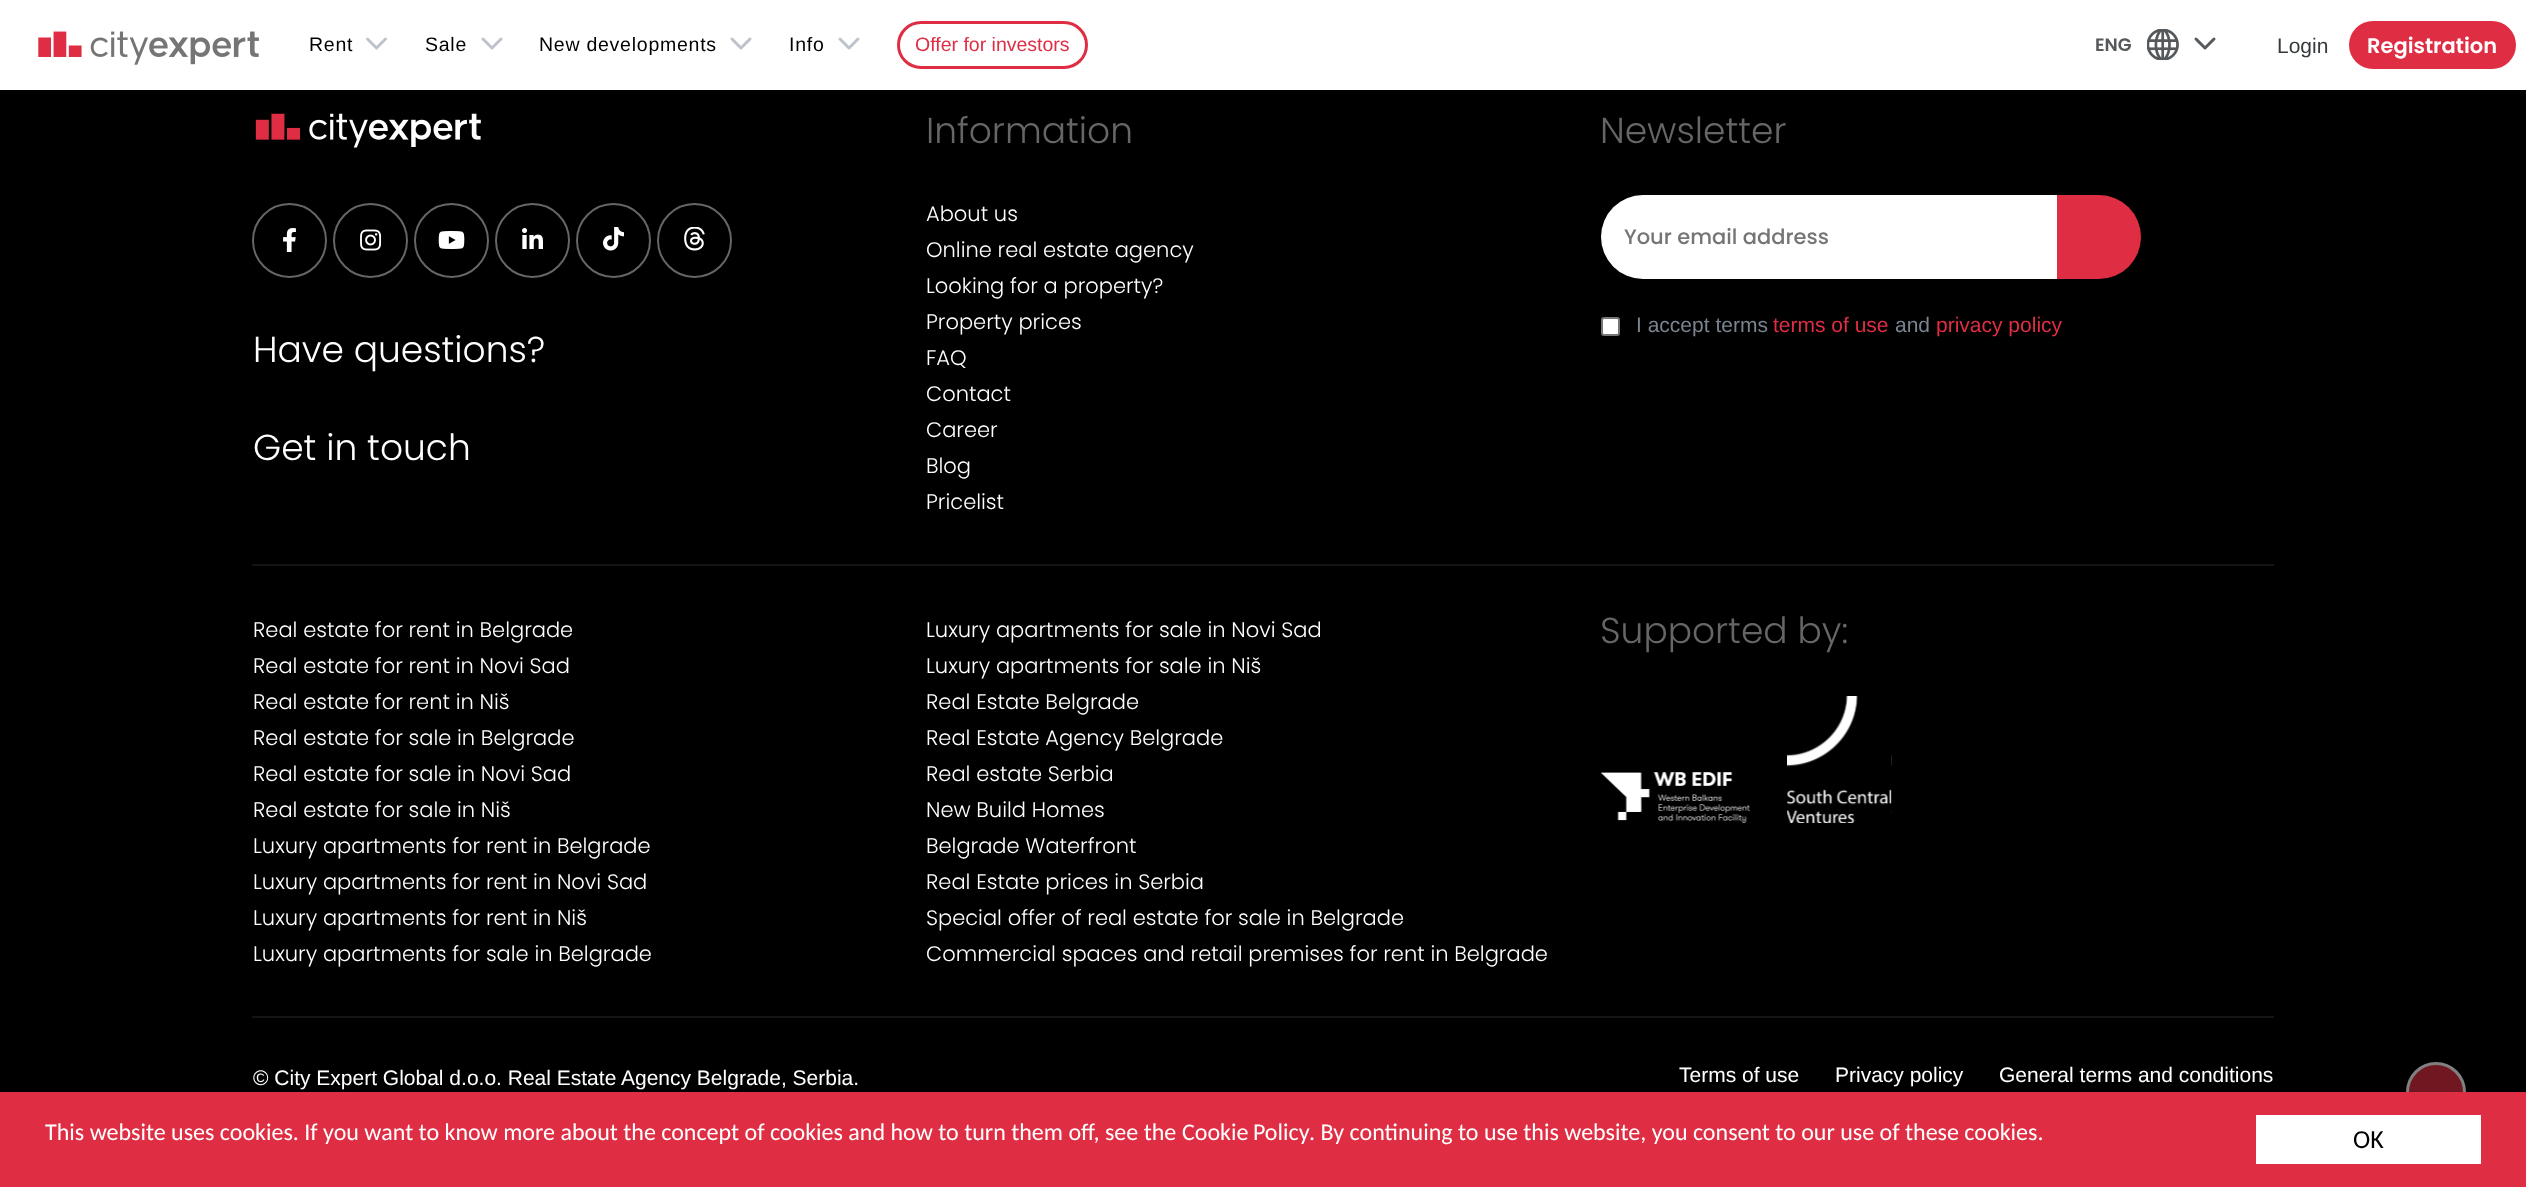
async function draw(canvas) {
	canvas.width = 2526;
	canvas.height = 1187;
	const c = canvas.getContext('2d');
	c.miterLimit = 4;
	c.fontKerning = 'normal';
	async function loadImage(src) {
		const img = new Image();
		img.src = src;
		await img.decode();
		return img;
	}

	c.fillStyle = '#000';
	c.fillRect(0, 0, 2526, 1187);
	c.fillStyle = '#fff';
	c.fillRect(0, 0, 2526, 90);
	c.drawImage(await loadImage('img1.png'), 38, 31, 221, 34);
	c.letterSpacing = '0.75px';
	c.font = '19.5px Liberation Sans';
	c.fillStyle = '#000';
	c.fillText('Rent', 309, 51);
	c.beginPath();
	c.moveTo(367.5, 39);
	c.lineTo(376.5, 48);
	c.lineTo(385.5, 39);
	c.strokeStyle = '#bec3cb';
	c.lineWidth = 3;
	c.lineCap = 'round';
	c.lineJoin = 'round';
	c.stroke();
	c.fillText('Sale', 425, 51);
	c.beginPath();
	c.moveTo(483, 39);
	c.lineTo(492, 48);
	c.lineTo(501, 39);
	c.stroke();
	c.fillText('New developments', 539, 51);
	c.beginPath();
	c.moveTo(732, 39);
	c.lineTo(741, 48);
	c.lineTo(750, 39);
	c.stroke();
	c.fillText('Info', 789, 51);
	c.beginPath();
	c.moveTo(840, 39);
	c.lineTo(849, 48);
	c.lineTo(858, 39);
	c.stroke();
	c.beginPath();
	c.roundRect(898.5, 22.5, 188, 45, 22.5);
	c.strokeStyle = '#df2d43';
	c.lineJoin = 'miter';
	c.stroke();
	c.letterSpacing = '0px';
	c.fillStyle = '#df2d43';
	c.fillText('Offer for investors', 915, 51);
	c.font = '600 18px Poppins';
	c.fillStyle = '#55595c';
	c.fillText('ENG', 2095, 51);
	c.drawImage(await loadImage('img2.png'), 2147, 29, 32, 31);
	c.beginPath();
	c.moveTo(2196, 39);
	c.lineTo(2205, 48);
	c.lineTo(2214, 39);
	c.strokeStyle = '#55595c';
	c.lineJoin = 'round';
	c.stroke();
	c.font = '21px Liberation Sans';
	c.fillStyle = '#373a3c';
	c.fillText('Login', 2277, 53);
	c.fillStyle = '#df2d43';
	c.beginPath();
	c.roundRect(2349, 21, 167, 48, 24);
	c.fill();
	c.font = '600 21px Poppins';
	c.fillStyle = '#fff';
	c.fillText('Registration', 2367, 53);
	c.fillStyle = '#141414';
	c.fillRect(252, 564, 2022, 2);
	c.font = '300 36px Poppins';
	c.fillStyle = '#666';
	c.fillText('Information', 926, 143);
	c.font = '300 21px Poppins';
	c.fillStyle = '#fff';
	for (const [text, x, y] of [
		['About us', 926, 221],
		['Online real estate agency', 926, 257],
		['Looking for a property?', 926, 293],
		['Property prices', 926, 329],
		['FAQ', 926, 365],
		['Contact', 926, 401],
		['Career', 926, 437],
		['Blog', 926, 473],
		['Pricelist', 926, 509],
	]) {
		c.fillText(text, x, y);
	}
	c.font = '300 36px Poppins';
	c.fillStyle = '#666';
	c.fillText('Newsletter', 1600, 143);
	c.fillStyle = '#fff';
	c.beginPath();
	c.roundRect(1601, 195, 465, 84, [42, 0, 0, 42]);
	c.fill();
	c.font = '500 21px Poppins';
	c.fillStyle = '#757575';
	c.fillText('Your email address', 1624, 244);
	c.fillStyle = '#df2d43';
	c.beginPath();
	c.roundRect(2057, 195, 84, 84, [0, 42, 42, 0]);
	c.fill();
	c.fillStyle = '#fff';
	c.beginPath();
	c.roundRect(1602, 318, 17, 17, 2);
	c.fill();
	c.strokeStyle = '#767676';
	c.lineWidth = 2;
	c.lineJoin = 'miter';
	c.stroke();
	c.font = '21px Liberation Sans';
	c.fillStyle = '#7a8390';
	c.fillText('I accept terms', 1636, 332);
	c.fillStyle = '#df2d43';
	c.fillText('terms of use', 1773, 332);
	c.fillStyle = '#7a8390';
	c.fillText('and', 1895, 332);
	c.fillStyle = '#df2d43';
	c.fillText('privacy policy', 1936, 332);
	c.drawImage(await loadImage('img3.png'), 255, 113, 226, 35);
	c.beginPath();
	c.arc(289.5, 240.5, 36.5, 0, 2 * Math.PI);
	c.strokeStyle = '#666';
	c.stroke();
	c.drawImage(await loadImage('img4.png'), 283, 228, 13, 24);
	c.beginPath();
	c.arc(370.5, 240.5, 36.5, 0, 2 * Math.PI);
	c.stroke();
	c.drawImage(await loadImage('img5.png'), 360, 229, 22, 22);
	c.beginPath();
	c.arc(451.5, 240.5, 36.5, 0, 2 * Math.PI);
	c.stroke();
	c.drawImage(await loadImage('img6.png'), 438, 231, 27, 18);
	c.beginPath();
	c.arc(532.5, 240.5, 36.5, 0, 2 * Math.PI);
	c.stroke();
	c.drawImage(await loadImage('img7.png'), 522, 228, 21, 21);
	c.beginPath();
	c.arc(613.5, 240.5, 36.5, 0, 2 * Math.PI);
	c.stroke();
	c.drawImage(await loadImage('img8.png'), 603, 227, 21, 24);
	c.beginPath();
	c.arc(694.5, 240.5, 36.5, 0, 2 * Math.PI);
	c.stroke();
	c.drawImage(await loadImage('img9.png'), 684, 227, 21, 24);
	c.font = '300 36px Poppins';
	c.fillStyle = '#fff';
	c.fillText('Have questions?', 253, 362);
	c.fillText('Get in touch', 253, 460);
	c.fillStyle = '#141414';
	c.fillRect(252, 1016, 2022, 2);
	c.font = '300 21px Poppins';
	c.fillStyle = '#fff';
	for (const [text, x, y] of [
		['Real estate for rent in Belgrade', 253, 637],
		['Real estate for rent in Novi Sad', 253, 673],
		['Real estate for rent in Niš', 253, 709],
		['Real estate for sale in Belgrade', 253, 745],
		['Real estate for sale in Novi Sad', 253, 781],
		['Real estate for sale in Niš', 253, 817],
		['Luxury apartments for rent in Belgrade', 253, 853],
		['Luxury apartments for rent in Novi Sad', 253, 889],
		['Luxury apartments for rent in Niš', 253, 925],
		['Luxury apartments for sale in Belgrade', 253, 961],
		['Luxury apartments for sale in Novi Sad', 926, 637],
		['Luxury apartments for sale in Niš', 926, 673],
		['Real Estate Belgrade', 926, 709],
		['Real Estate Agency Belgrade', 926, 745],
		['Real estate Serbia', 926, 781],
		['New Build Homes', 926, 817],
		['Belgrade Waterfront', 926, 853],
		['Real Estate prices in Serbia', 926, 889],
		['Special offer of real estate for sale in Belgrade', 926, 925],
		['Commercial spaces and retail premises for rent in Belgrade', 926, 961],
	]) {
		c.fillText(text, x, y);
	}
	c.font = '300 36px Poppins';
	c.fillStyle = '#666';
	c.fillText('Supported by:', 1600, 643);
	c.drawImage(await loadImage('img10.png'), 1601, 772, 150, 51);
	c.drawImage(await loadImage('img11.png'), 1787, 696, 105, 127);
	c.font = '21px Liberation Sans';
	c.fillStyle = '#fff';
	for (const [text, x, y] of [
		['© City Expert Global d.o.o. Real Estate Agency Belgrade, Serbia.', 253, 1085],
		['Terms of use', 1679, 1082],
		['Privacy policy', 1835, 1082],
		['General terms and conditions', 1999, 1082],
	]) {
		c.fillText(text, x, y);
	}
	c.fillStyle = '#701722';
	c.beginPath();
	c.arc(2436, 1092, 28.5, 0, 2 * Math.PI);
	c.fill();
	c.strokeStyle = '#808080';
	c.lineWidth = 3;
	c.stroke();
	c.fillStyle = '#df2d43';
	c.fillRect(0, 1092, 2526, 95);
	c.font = '24px Carlito';
	c.fillStyle = '#fff';
	c.fillText('This website uses cookies. If you want to know more about the concept of cookies and how to turn them off, see the', 45, 1140);
	c.wordSpacing = '-1px';
	c.fillText('Cookie Policy', 1182, 1140);
	c.wordSpacing = '0px';
	c.fillText('. By continuing to use this website, you consent to our use of these cookies.', 1309, 1140);
	c.fillRect(2256, 1115, 225, 49);
	c.font = '26px Carlito';
	c.fillStyle = '#000';
	c.fillText('OK', 2353, 1148);
}

draw(document.querySelector('canvas'));
